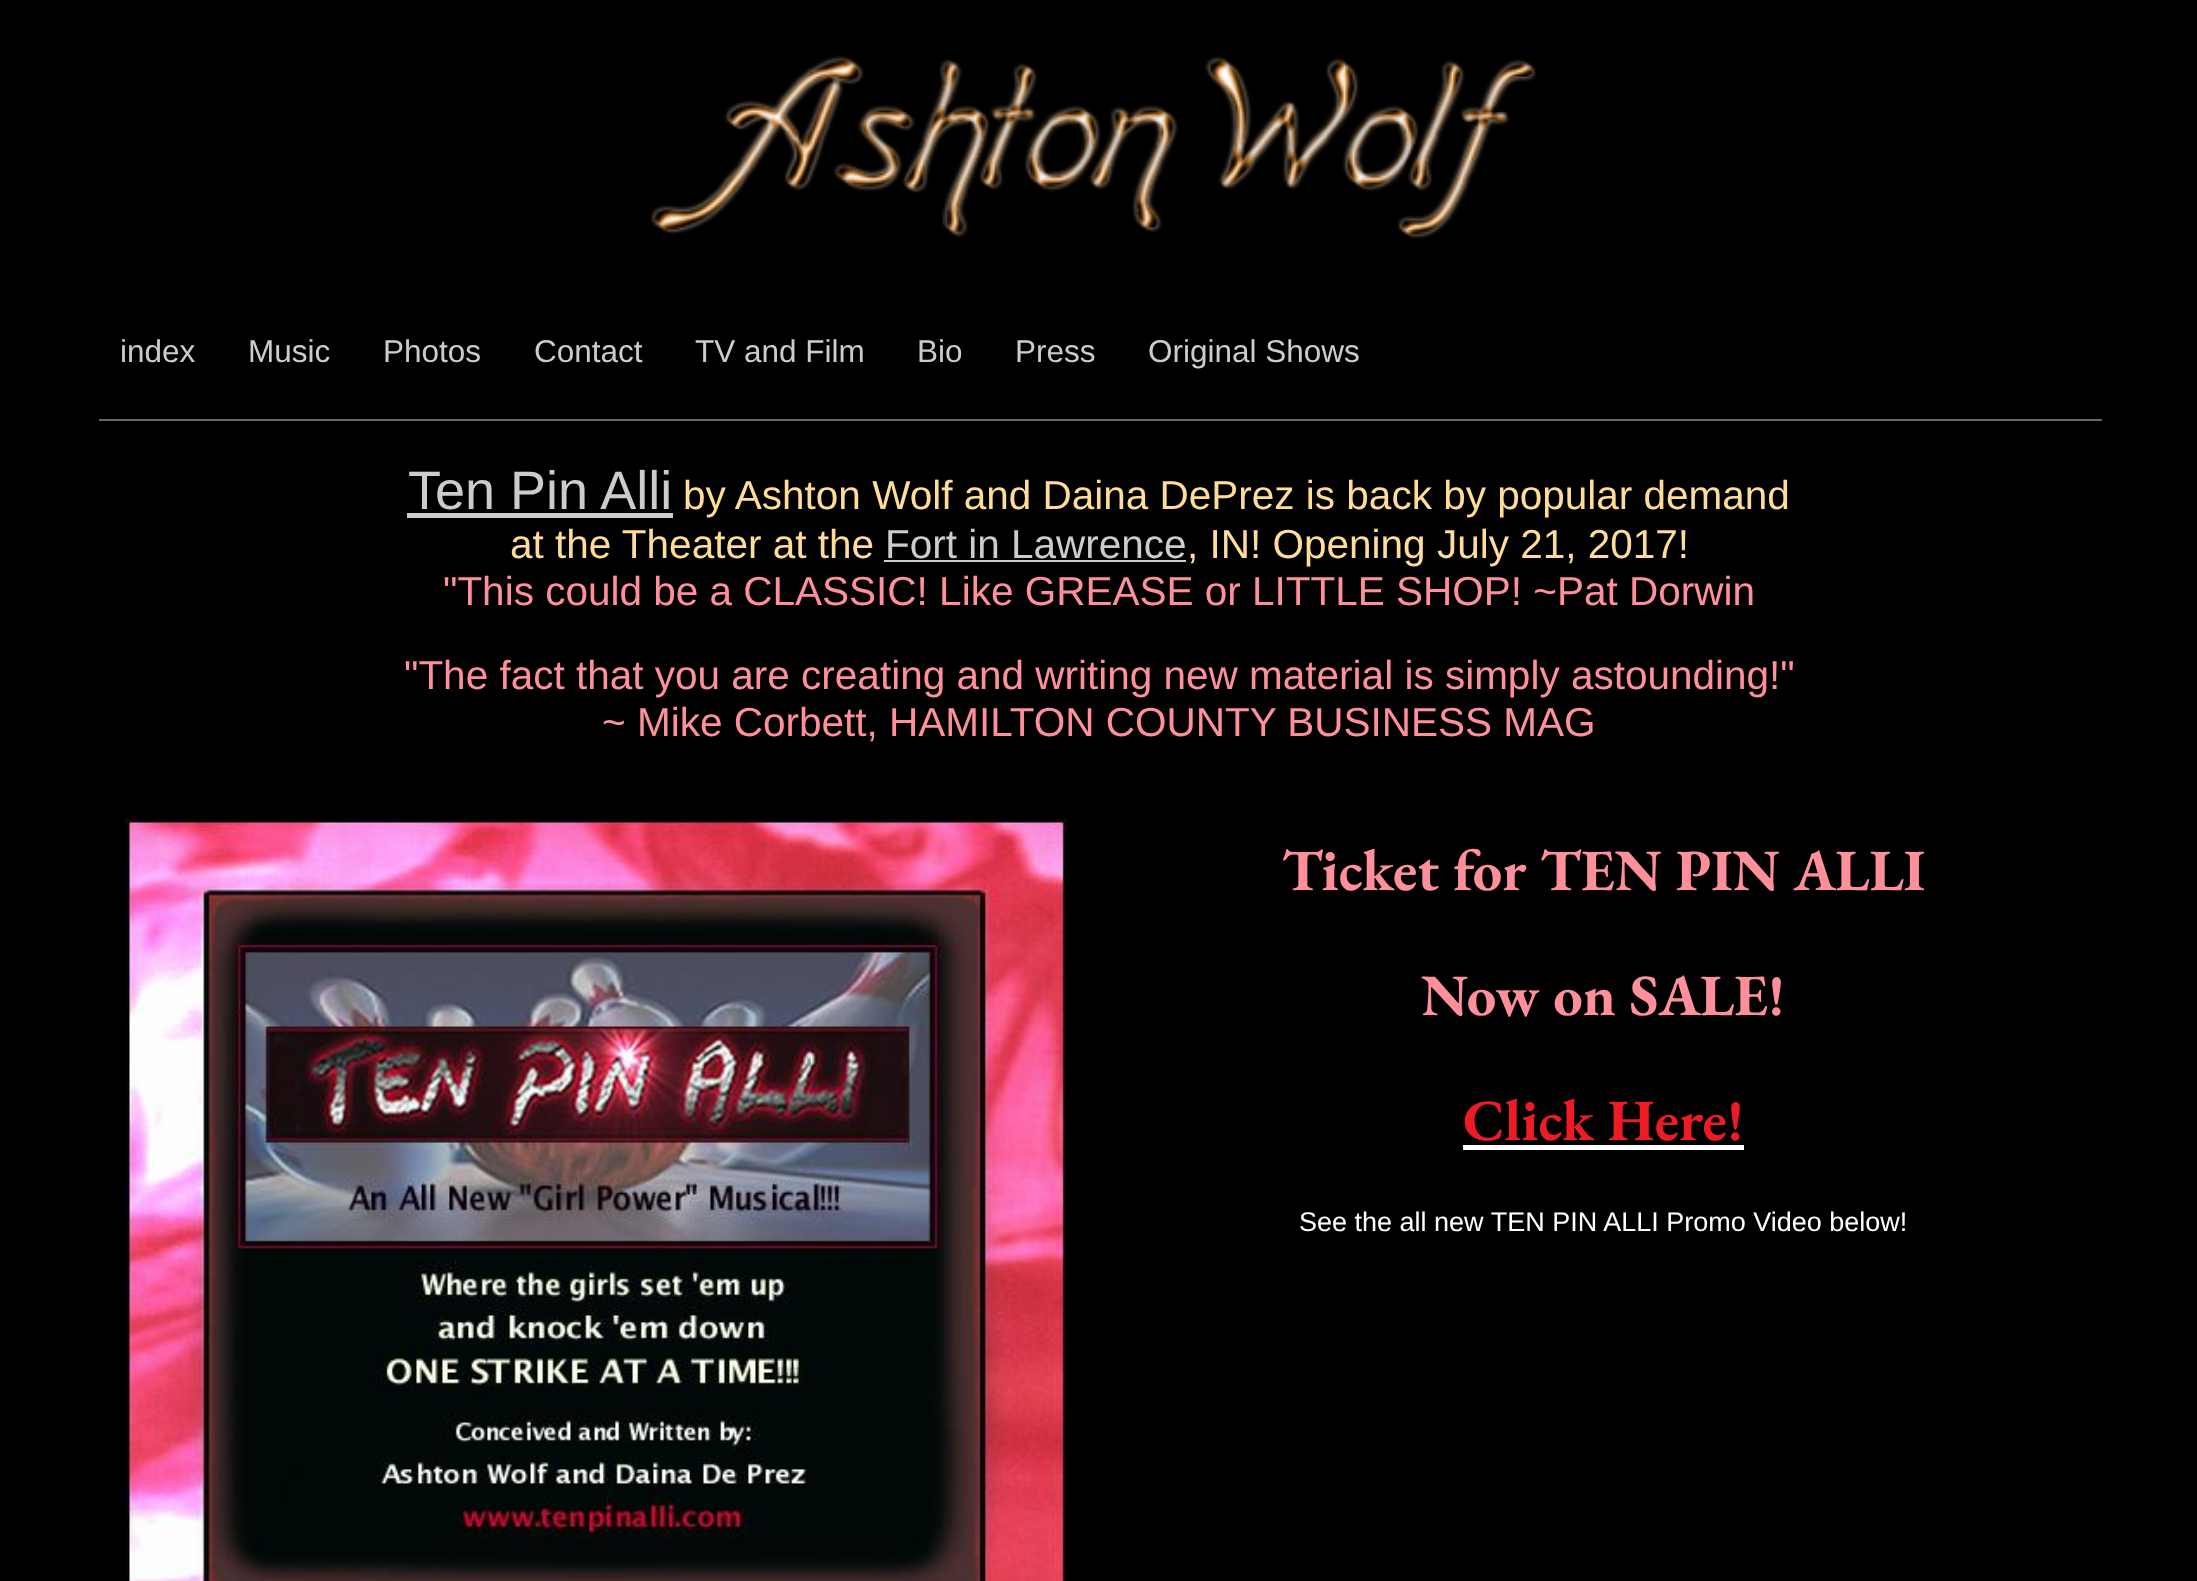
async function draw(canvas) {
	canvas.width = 2197;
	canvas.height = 1581;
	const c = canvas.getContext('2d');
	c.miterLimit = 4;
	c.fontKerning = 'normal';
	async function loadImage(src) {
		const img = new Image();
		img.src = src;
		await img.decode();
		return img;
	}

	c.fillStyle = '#000';
	c.fillRect(0, 0, 2197, 1581);
	c.drawImage(await loadImage('img1.png'), 650, 56, 887, 183);
	c.fillStyle = '#666';
	c.fillRect(99, 419, 2003, 2);
	c.font = '31.5px Liberation Sans';
	c.fillStyle = '#ccc';
	for (const [text, x, y] of [
		['index', 120, 362],
		['Music', 248, 362],
		['Photos', 383, 362],
		['Contact', 534, 362],
		['TV and Film', 695, 362],
		['Bio', 917, 362],
		['Press', 1015, 362],
		['Original Shows', 1148, 362],
	]) {
		c.fillText(text, x, y);
	}
	c.font = '54px Liberation Sans';
	c.fillText('Ten Pin Alli', 408, 509);
	c.fillRect(407, 513, 266, 5);
	c.font = '40.5px Liberation Sans';
	c.fillStyle = '#fd9';
	c.fillText('by Ashton Wolf and Daina DePrez is back by popular demand', 683, 509);
	c.fillText('at the Theater at the', 510, 558);
	c.fillStyle = '#ccc';
	c.fillText('Fort in Lawrence', 885, 558);
	c.fillStyle = '#fd9';
	c.fillText(', IN! Opening July 21, 2017!', 1187, 558);
	c.fillStyle = '#ccc';
	c.fillRect(884, 560, 302, 2);
	c.fillStyle = '#ff909b';
	for (const [text, x, y] of [
		['"This could be a CLASSIC! Like GREASE or LITTLE SHOP! ~Pat Dorwin', 443, 605],
		['"The fact that you are creating and writing new material is simply astounding!"', 404, 689],
		['~ Mike Corbett, HAMILTON COUNTY BUSINESS MAG', 602, 736],
	]) {
		c.fillText(text, x, y);
	}
	c.drawImage(await loadImage('img2.png'), 126, 819, 941, 762);
	c.font = 'bold 58.5px EB Garamond';
	c.fillText('Ticket for TEN PIN ALLI', 1282, 890);
	c.fillText('Now on SALE!', 1421, 1015);
	c.fillStyle = '#ed1c24';
	c.fillText('Click Here!', 1463, 1140);
	c.fillStyle = '#fff';
	c.fillRect(1463, 1145, 281, 5);
	c.font = '27px Liberation Sans';
	c.fillText('See the all new TEN PIN ALLI Promo Video below!', 1299, 1231);
}

draw(document.querySelector('canvas'));
